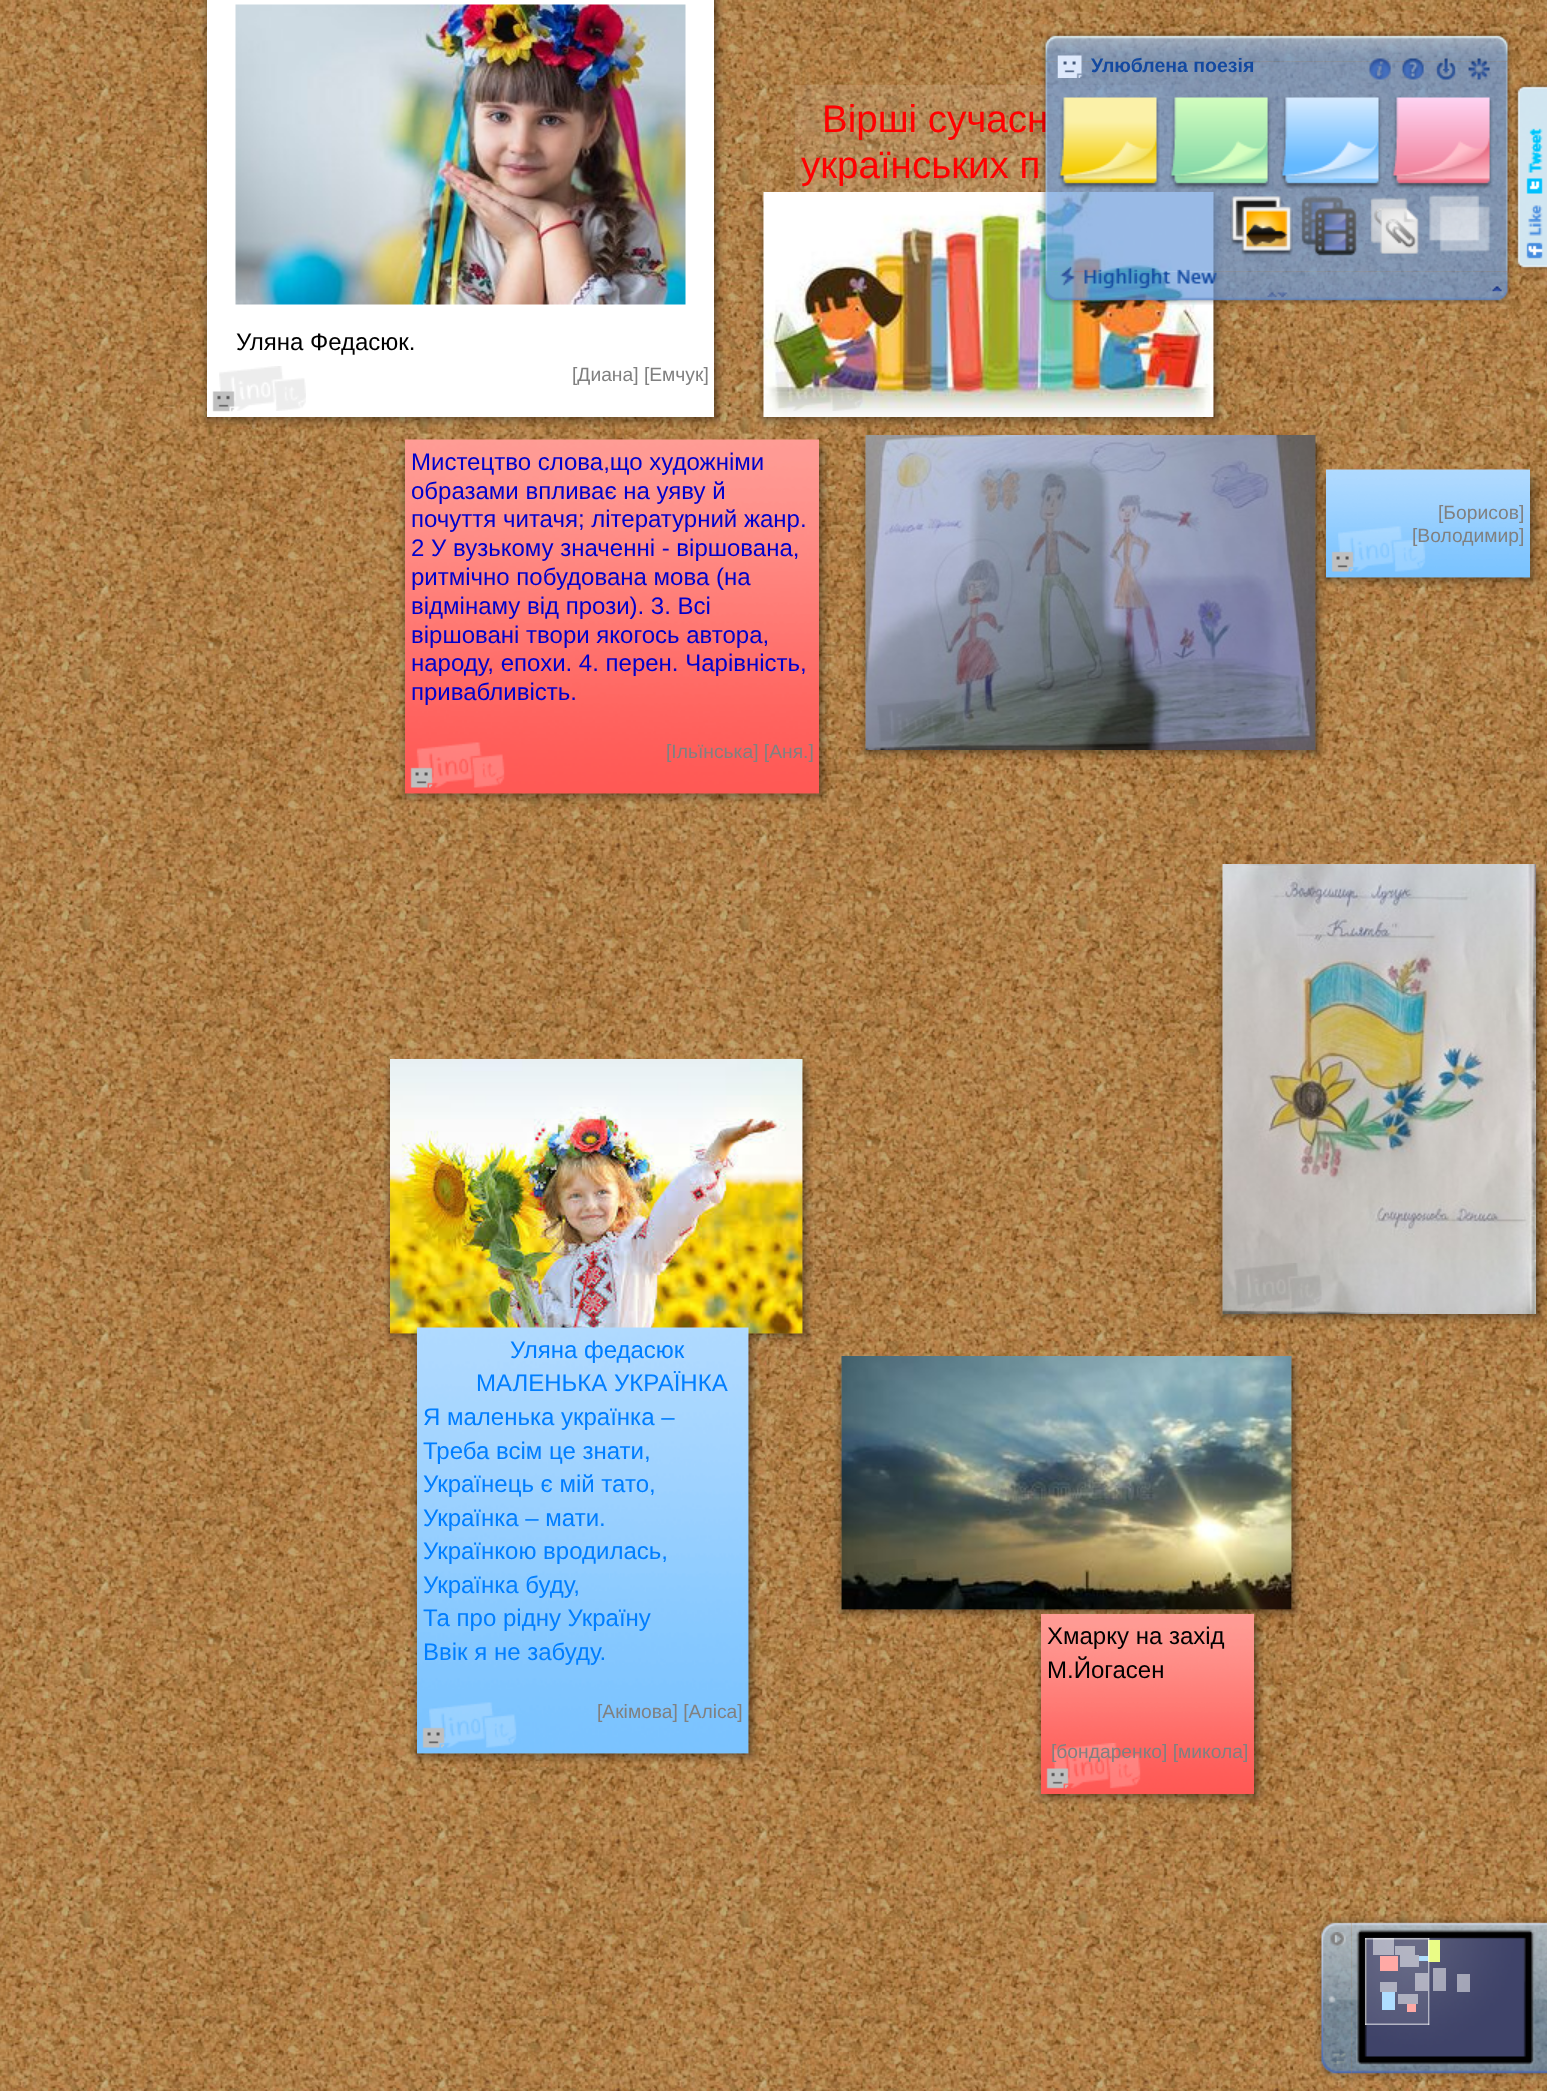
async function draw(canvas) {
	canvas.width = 1547;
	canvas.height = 2091;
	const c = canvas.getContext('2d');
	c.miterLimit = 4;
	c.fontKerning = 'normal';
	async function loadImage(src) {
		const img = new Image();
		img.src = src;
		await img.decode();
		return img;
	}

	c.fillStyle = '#fff';
	c.fillRect(0, 0, 1547, 2091);
	c.drawImage(await loadImage('img20.png'), 0, 0, 1547, 2091);
	c.drawImage(await loadImage('img1.png'), 1040, 31, 473, 31);
	c.fillStyle = '#ffffff1a';
	c.fillRect(795, 85, 380, 107);
	c.font = '38.5px Liberation Sans';
	c.fillStyle = '#f00';
	c.fillText('Вірші сучасн', 822, 132);
	c.drawImage(await loadImage('img29.png'), 757, 195, 7, 9);
	c.drawImage(await loadImage('img32.png'), 756, 204, 8, 213);
	c.drawImage(await loadImage('img30.png'), 763, 192, 451, 225);
	c.drawImage(await loadImage('img31.png'), 1213, 194, 10, 10);
	c.drawImage(await loadImage('img33.png'), 1213, 204, 11, 213);
	c.drawImage(await loadImage('img2.png'), 1040, 61, 473, 211);
	c.drawImage(await loadImage('img3.png'), 1040, 271, 473, 34);
	c.drawImage(await loadImage('img4.png'), 1057, 55, 25, 23);
	c.font = 'bold 19.5px Liberation Sans';
	c.fillStyle = '#1349a0';
	c.fillText('Улюблена поезія', 1091, 72);
	c.drawImage(await loadImage('img5.png'), 1369, 58, 22, 22);
	c.drawImage(await loadImage('img6.png'), 1402, 58, 22, 22);
	c.drawImage(await loadImage('img7.png'), 1436, 58, 20, 22);
	c.drawImage(await loadImage('img8.png'), 1468, 58, 22, 22);
	c.drawImage(await loadImage('img9.png'), 1058, 97, 102, 92);
	c.drawImage(await loadImage('img10.png'), 1169, 97, 102, 92);
	c.drawImage(await loadImage('img11.png'), 1280, 97, 102, 92);
	c.drawImage(await loadImage('img12.png'), 1391, 97, 102, 92);
	c.drawImage(await loadImage('img13.png'), 1230, 196, 63, 60);
	c.drawImage(await loadImage('img14.png'), 1301, 196, 56, 60);
	c.drawImage(await loadImage('img15.png'), 1370, 197, 49, 57);
	c.drawImage(await loadImage('img16.png'), 1429, 195, 61, 57);
	c.drawImage(await loadImage('img17.png'), 1060, 266, 157, 23);
	c.drawImage(await loadImage('img18.png'), 1492, 286, 10, 6);
	c.drawImage(await loadImage('img19.png'), 1267, 292, 21, 6);
	c.font = '38.5px Liberation Sans';
	c.fillStyle = '#f00';
	c.fillText('українських п', 801, 178);
	c.drawImage(await loadImage('img21.png'), 200, 0, 7, 417);
	c.fillStyle = '#fff';
	c.fillRect(207, 0, 507, 417);
	c.drawImage(await loadImage('img22.png'), 714, 0, 10, 417);
	c.drawImage(await loadImage('img23.png'), 200, 417, 7, 10);
	c.drawImage(await loadImage('img24.png'), 207, 417, 507, 10);
	c.drawImage(await loadImage('img25.png'), 714, 417, 10, 10);
	c.drawImage(await loadImage('img26.png'), 235, 4, 451, 301);
	c.font = '24px Liberation Sans';
	c.fillStyle = '#000';
	c.fillText('Уляна Федасюк.', 236, 350);
	c.font = '19.25px Liberation Sans';
	c.fillStyle = '#808080';
	c.fillText('[Диана] [Емчук]', 572, 381);
	c.drawImage(await loadImage('img28.png'), 219, 366, 87, 45);
	c.drawImage(await loadImage('img27.png'), 212, 391, 23, 21);
	c.drawImage(await loadImage('img34.png'), 756, 417, 8, 10);
	c.drawImage(await loadImage('img36.png'), 1213, 417, 11, 10);
	c.drawImage(await loadImage('img35.png'), 763, 417, 451, 10);
	c.drawImage(await loadImage('img37.png'), 775, 366, 88, 45);
	c.drawImage(await loadImage('img38.png'), 398, 442, 7, 10);
	c.drawImage(await loadImage('img39.png'), 405, 439, 414, 355);
	c.drawImage(await loadImage('img40.png'), 819, 442, 10, 10);
	c.drawImage(await loadImage('img41.png'), 398, 451, 7, 343);
	c.drawImage(await loadImage('img42.png'), 819, 451, 10, 343);
	c.drawImage(await loadImage('img43.png'), 398, 793, 7, 10);
	c.drawImage(await loadImage('img44.png'), 405, 793, 414, 11);
	c.drawImage(await loadImage('img45.png'), 819, 793, 10, 11);
	c.font = '24px Liberation Sans';
	c.fillStyle = '#00c';
	for (const [text, x, y] of [
		['Мистецтво слова,що художніми', 411, 470],
		['образами впливає на уяву й', 411, 499],
		['почуття читачя; літературний жанр.', 411, 527],
		['2 У вузькому значенні - віршована,', 411, 556],
		['ритмічно побудована мова (на', 411, 585],
		['відмінаму від прози). 3. Всі', 411, 614],
		['віршовані твори якогось автора,', 411, 643],
		['народу, епохи. 4. перен. Чарівність,', 411, 671],
		['привабливість.', 411, 700],
	]) {
		c.fillText(text, x, y);
	}
	c.font = '19.25px Liberation Sans';
	c.fillStyle = '#808080';
	c.fillText('[Ільїнська] [Аня.]', 666, 758);
	c.drawImage(await loadImage('img47.png'), 416, 742, 89, 46);
	c.drawImage(await loadImage('img46.png'), 410, 767, 23, 21);
	c.drawImage(await loadImage('img48.png'), 859, 438, 7, 9);
	c.drawImage(await loadImage('img51.png'), 858, 447, 8, 303);
	c.drawImage(await loadImage('img49.png'), 865, 435, 451, 315);
	c.drawImage(await loadImage('img50.png'), 1315, 437, 10, 10);
	c.drawImage(await loadImage('img52.png'), 1315, 447, 11, 303);
	c.drawImage(await loadImage('img53.png'), 859, 750, 7, 10);
	c.drawImage(await loadImage('img55.png'), 1315, 750, 11, 10);
	c.drawImage(await loadImage('img54.png'), 865, 750, 451, 10);
	c.drawImage(await loadImage('img56.png'), 877, 699, 87, 45);
	c.drawImage(await loadImage('img57.png'), 1319, 472, 7, 10);
	c.drawImage(await loadImage('img58.png'), 1326, 469, 204, 109);
	c.drawImage(await loadImage('img59.png'), 1530, 472, 10, 10);
	c.drawImage(await loadImage('img60.png'), 1319, 481, 7, 97);
	c.drawImage(await loadImage('img61.png'), 1530, 481, 10, 97);
	c.drawImage(await loadImage('img62.png'), 1319, 577, 7, 10);
	c.drawImage(await loadImage('img63.png'), 1326, 577, 204, 11);
	c.drawImage(await loadImage('img64.png'), 1530, 577, 10, 11);
	c.drawImage(await loadImage('img65.png'), 1338, 526, 88, 46);
	c.fillText('[Борисов]', 1438, 519);
	c.fillText('[Володимир]', 1412, 542);
	c.drawImage(await loadImage('img66.png'), 1331, 551, 23, 21);
	c.drawImage(await loadImage('img67.png'), 383, 1062, 7, 9);
	c.drawImage(await loadImage('img68.png'), 390, 1059, 413, 275);
	c.drawImage(await loadImage('img69.png'), 802, 1061, 11, 10);
	c.drawImage(await loadImage('img70.png'), 383, 1071, 7, 263);
	c.drawImage(await loadImage('img71.png'), 802, 1071, 11, 263);
	c.drawImage(await loadImage('img72.png'), 383, 1333, 7, 10);
	c.drawImage(await loadImage('img74.png'), 802, 1333, 11, 10);
	c.drawImage(await loadImage('img73.png'), 390, 1333, 413, 11);
	c.drawImage(await loadImage('img75.png'), 402, 1282, 87, 46);
	c.drawImage(await loadImage('img76.png'), 1215, 867, 8, 9);
	c.drawImage(await loadImage('img79.png'), 1215, 876, 8, 438);
	c.drawImage(await loadImage('img77.png'), 1222, 864, 314, 450);
	c.drawImage(await loadImage('img78.png'), 1536, 866, 10, 10);
	c.drawImage(await loadImage('img80.png'), 1536, 876, 10, 438);
	c.drawImage(await loadImage('img81.png'), 1215, 1314, 8, 9);
	c.drawImage(await loadImage('img82.png'), 1222, 1314, 314, 10);
	c.drawImage(await loadImage('img83.png'), 1536, 1314, 10, 10);
	c.drawImage(await loadImage('img84.png'), 1234, 1263, 88, 45);
	c.drawImage(await loadImage('img85.png'), 411, 1330, 6, 10);
	c.drawImage(await loadImage('img86.png'), 417, 1327, 332, 427);
	c.drawImage(await loadImage('img87.png'), 748, 1329, 10, 11);
	c.drawImage(await loadImage('img88.png'), 410, 1339, 7, 415);
	c.drawImage(await loadImage('img89.png'), 748, 1339, 11, 415);
	c.drawImage(await loadImage('img90.png'), 410, 1753, 7, 10);
	c.drawImage(await loadImage('img92.png'), 748, 1753, 11, 11);
	c.drawImage(await loadImage('img91.png'), 417, 1753, 332, 11);
	c.font = '24px Liberation Sans';
	c.fillStyle = '#007eff';
	for (const [text, x, y] of [
		['Уляна федасюк', 510, 1358],
		['МАЛЕНЬКА УКРАЇНКА', 476, 1391],
		['Я маленька українка –', 423, 1425],
		['Треба всім це знати,', 423, 1459],
		['Українець є мій тато,', 423, 1492],
		['Українка – мати.', 423, 1526],
		['Українкою вродилась,', 423, 1559],
		['Українка буду,', 423, 1593],
		['Та про рідну Україну', 423, 1626],
		['Ввік я не забуду.', 423, 1660],
	]) {
		c.fillText(text, x, y);
	}
	c.font = '19.25px Liberation Sans';
	c.fillStyle = '#808080';
	c.fillText('[Акімова] [Аліса]', 597, 1718);
	c.drawImage(await loadImage('img94.png'), 429, 1702, 88, 46);
	c.drawImage(await loadImage('img93.png'), 422, 1727, 23, 21);
	c.drawImage(await loadImage('img95.png'), 835, 1359, 7, 9);
	c.drawImage(await loadImage('img98.png'), 834, 1368, 8, 242);
	c.drawImage(await loadImage('img100.png'), 834, 1609, 8, 10);
	c.drawImage(await loadImage('img96.png'), 841, 1356, 451, 254);
	c.drawImage(await loadImage('img97.png'), 1291, 1358, 10, 10);
	c.drawImage(await loadImage('img99.png'), 1291, 1368, 11, 242);
	c.drawImage(await loadImage('img102.png'), 1291, 1609, 11, 11);
	c.drawImage(await loadImage('img101.png'), 841, 1609, 451, 11);
	c.drawImage(await loadImage('img103.png'), 854, 1559, 85, 26);
	c.drawImage(await loadImage('img104.png'), 1034, 1617, 7, 9);
	c.drawImage(await loadImage('img105.png'), 1041, 1614, 213, 180);
	c.drawImage(await loadImage('img106.png'), 1254, 1616, 10, 10);
	c.drawImage(await loadImage('img107.png'), 1034, 1626, 7, 168);
	c.drawImage(await loadImage('img108.png'), 1254, 1626, 10, 168);
	c.drawImage(await loadImage('img109.png'), 1034, 1794, 7, 10);
	c.drawImage(await loadImage('img110.png'), 1041, 1794, 213, 10);
	c.drawImage(await loadImage('img111.png'), 1254, 1794, 10, 10);
	c.font = '24px Liberation Sans';
	c.fillStyle = '#000';
	c.fillText('Хмарку на захід', 1047, 1644);
	c.fillText('М.Йогасен', 1047, 1678);
	c.drawImage(await loadImage('img113.png'), 1052, 1743, 89, 46);
	c.font = '19.25px Liberation Sans';
	c.fillStyle = '#808080';
	c.fillText('[бондаренко] [микола]', 1051, 1758);
	c.drawImage(await loadImage('img112.png'), 1046, 1768, 23, 21);
	c.drawImage(await loadImage('img114.png'), 1513, 82, 34, 190);
	c.drawImage(await loadImage('img118.png'), 1351, 1917, 196, 164);
	c.drawImage(await loadImage('img115.png'), 1314, 1917, 38, 164);
	c.drawImage(await loadImage('img116.png'), 1330, 1932, 16, 14);
	c.drawImage(await loadImage('img117.png'), 1330, 2049, 16, 15);
	c.drawImage(await loadImage('img119.png'), 1356, 1929, 179, 137);
	for (const [x, y, w, h, color] of [
		[1373, 1938, 21, 17, '#ffffff80'],
		[1395, 1946, 20, 9, '#ffffff80'],
		[1428, 1940, 12, 22, '#eafc86'],
		[1380, 1956, 18, 15, '#ffa09b'],
		[1400, 1955, 19, 12, '#ffffff80'],
		[1419, 1956, 9, 5, '#a6dbff'],
		[1380, 1982, 17, 10, '#ffffff80'],
		[1415, 1973, 13, 18, '#ffffff80'],
		[1382, 1992, 13, 18, '#a6dbff'],
		[1398, 1994, 20, 10, '#ffffff80'],
		[1407, 2004, 9, 8, '#ffa09b'],
		[1365, 1938, 65, 87, '#ffffff1a'],
	]) {
		c.fillStyle = color;
		c.fillRect(x, y, w, h);
	}
	c.drawImage(await loadImage('img120.png'), 1365, 1938, 2, 87);
	c.drawImage(await loadImage('img121.png'), 1365, 1938, 65, 2);
	c.drawImage(await loadImage('img122.png'), 1428, 1938, 2, 87);
	c.drawImage(await loadImage('img123.png'), 1365, 2023, 65, 2);
	c.fillStyle = '#ffffff80';
	c.fillRect(1433, 1968, 13, 23);
	c.fillRect(1457, 1974, 13, 18);
}

draw(document.querySelector('canvas'));
